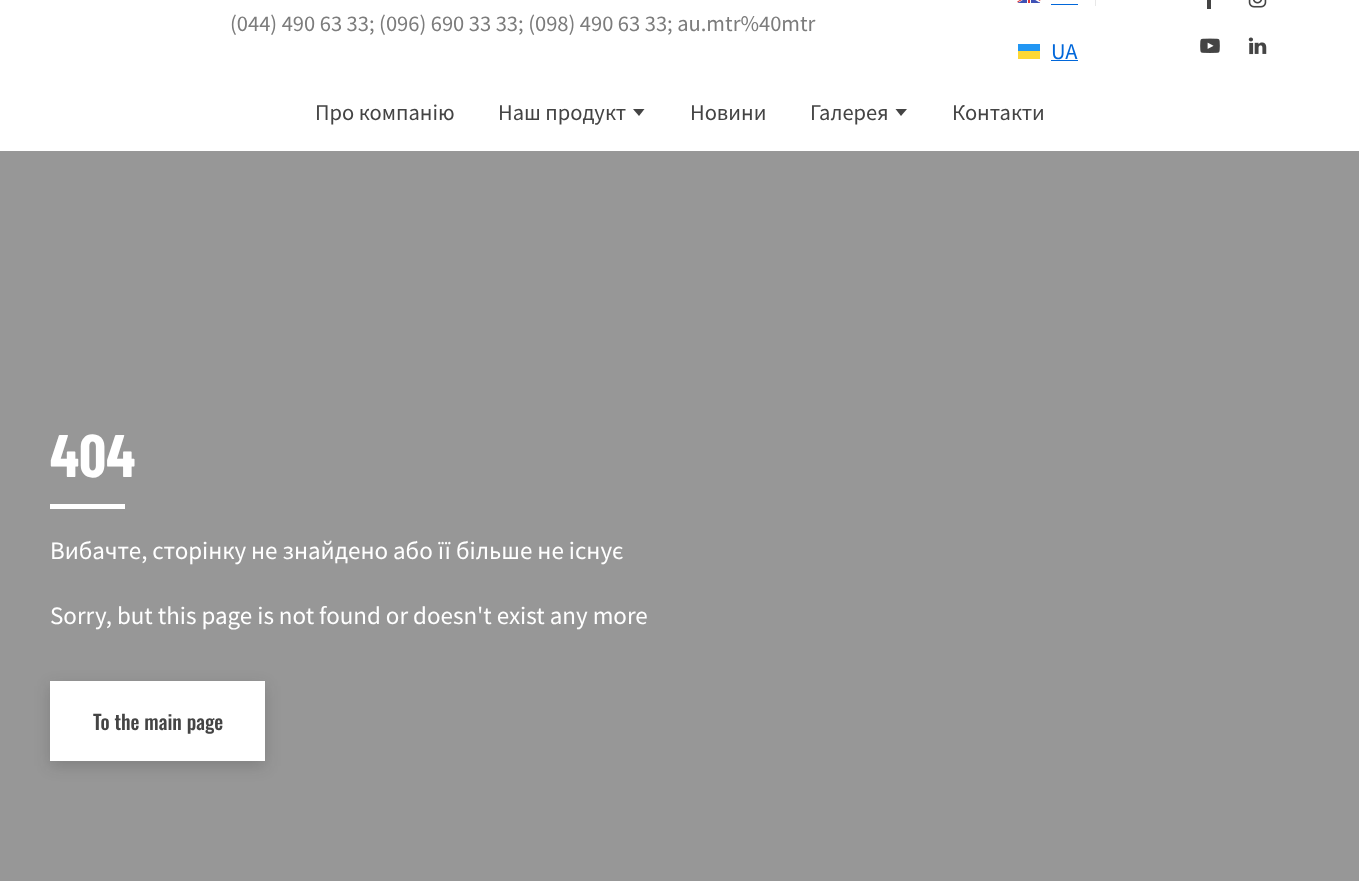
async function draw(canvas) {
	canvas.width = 1359;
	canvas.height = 881;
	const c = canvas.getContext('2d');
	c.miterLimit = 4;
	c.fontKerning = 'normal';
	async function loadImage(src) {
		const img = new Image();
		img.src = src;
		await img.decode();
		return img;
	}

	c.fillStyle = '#fff';
	c.fillRect(0, 0, 1359, 881);
	c.font = '22.5px Source Sans Pro';
	c.fillStyle = '#7c7c7c';
	c.fillText('(044) 490 63 33; (096) 690 33 33; (098) 490 63 33; au.mtr%40mtr', 230, 31);
	c.fillStyle = '#444';
	c.fillRect(1207, 0, 4, 9);
	c.drawImage(await loadImage('img1.png'), 1248, 0, 19, 8);
	c.drawImage(await loadImage('img2.png'), 1200, 38, 20, 15);
	c.drawImage(await loadImage('img3.png'), 1248, 37, 19, 18);
	c.drawImage(await loadImage('img4.png'), 1017, 0, 24, 3);
	for (const [x, y, w, h, color] of [
		[1051, 4, 27, 1, '#0167da'],
		[1095, 0, 1, 6, '#e8e8e8'],
		[1018, 44, 22, 7, '#2196f3'],
		[1018, 51, 22, 8, '#fdd835'],
	]) {
		c.fillStyle = color;
		c.fillRect(x, y, w, h);
	}
	c.fillStyle = '#0167da';
	c.fillText('UA', 1051, 59);
	c.fillRect(1051, 60, 27, 1);
	c.fillStyle = '#444';
	c.fillText('Про компанію', 315, 120);
	c.fillText('Наш продукт', 498, 120);
	c.beginPath();
	c.moveTo(639, 116);
	c.lineTo(644.5, 109);
	c.lineTo(633, 109);
	c.closePath();
	c.fill();
	c.fillText('Новини', 690, 120);
	c.fillText('Галерея', 810, 120);
	c.beginPath();
	c.moveTo(901, 116);
	c.lineTo(907, 109);
	c.lineTo(895.5, 109);
	c.closePath();
	c.fill();
	c.fillText('Контакти', 952, 120);
	c.fillStyle = '#979797';
	c.fillRect(0, 151, 1359, 730);
	c.font = 'bold 60px Barlow Condensed';
	c.fillStyle = '#fff';
	c.fillText('404', 50, 477);
	c.fillRect(50, 504, 75, 5);
	c.font = '25px Source Sans Pro';
	c.fillText('Вибачте, сторінку не знайдено або її більше не існує', 50, 559);
	c.fillText('Sorry, but this page is not found or doesn\'t exist any more', 50, 624);
	c.fillStyle = '#1d1d1d2e';
	c.filter = 'blur(7.5px)';
	c.beginPath();
	c.rect(50, 686, 215, 80);
	c.fill();
	c.filter = 'none';
	c.fillStyle = '#fff';
	c.fillRect(50, 681, 215, 80);
	c.font = '500 20px Oswald';
	c.fillStyle = '#444';
	c.fillText('To the main page', 93, 730);
}

draw(document.querySelector('canvas'));
